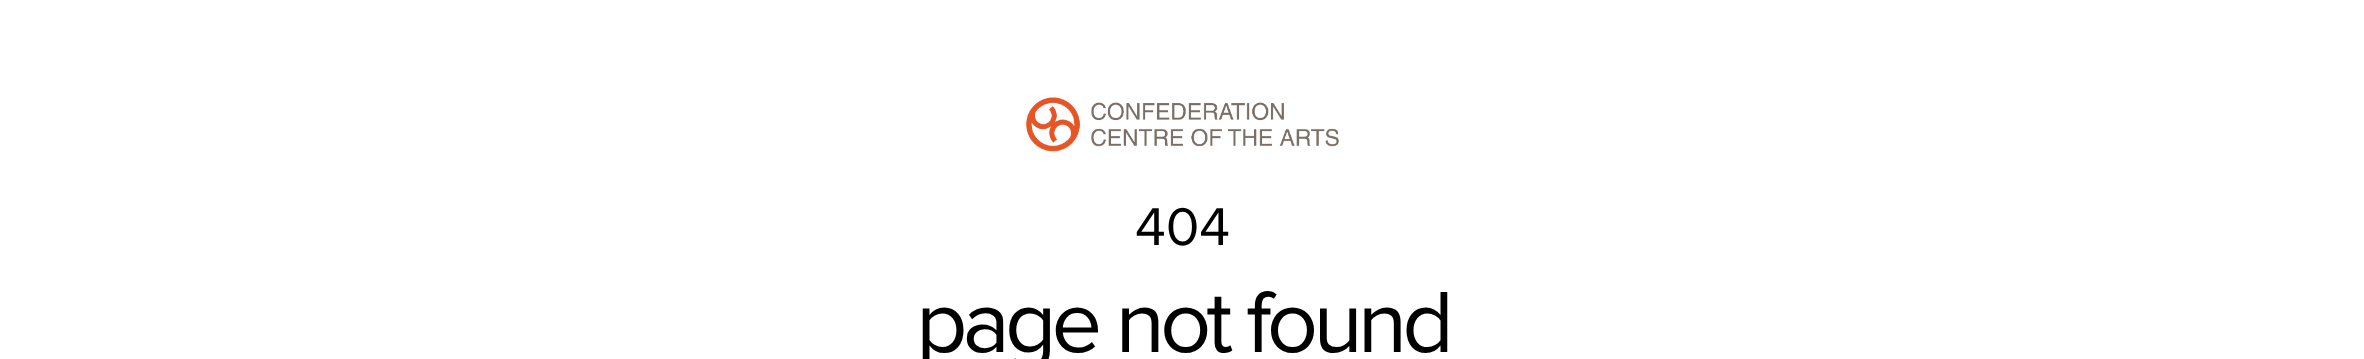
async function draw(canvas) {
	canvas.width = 2364;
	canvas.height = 359;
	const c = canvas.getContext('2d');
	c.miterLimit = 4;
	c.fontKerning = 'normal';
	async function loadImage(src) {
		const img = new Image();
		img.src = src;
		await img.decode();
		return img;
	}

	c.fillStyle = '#fff';
	c.fillRect(0, 0, 2364, 359);
	c.drawImage(await loadImage('img1.png'), 1026, 97, 313, 55);
	c.font = '55px Proxima Nova';
	c.fillStyle = '#000';
	c.fillText('404', 1135, 245);
	c.letterSpacing = '-5px';
	c.font = '90px Proxima Nova';
	c.fillText('page not found', 916, 352);
}

draw(document.querySelector('canvas'));
